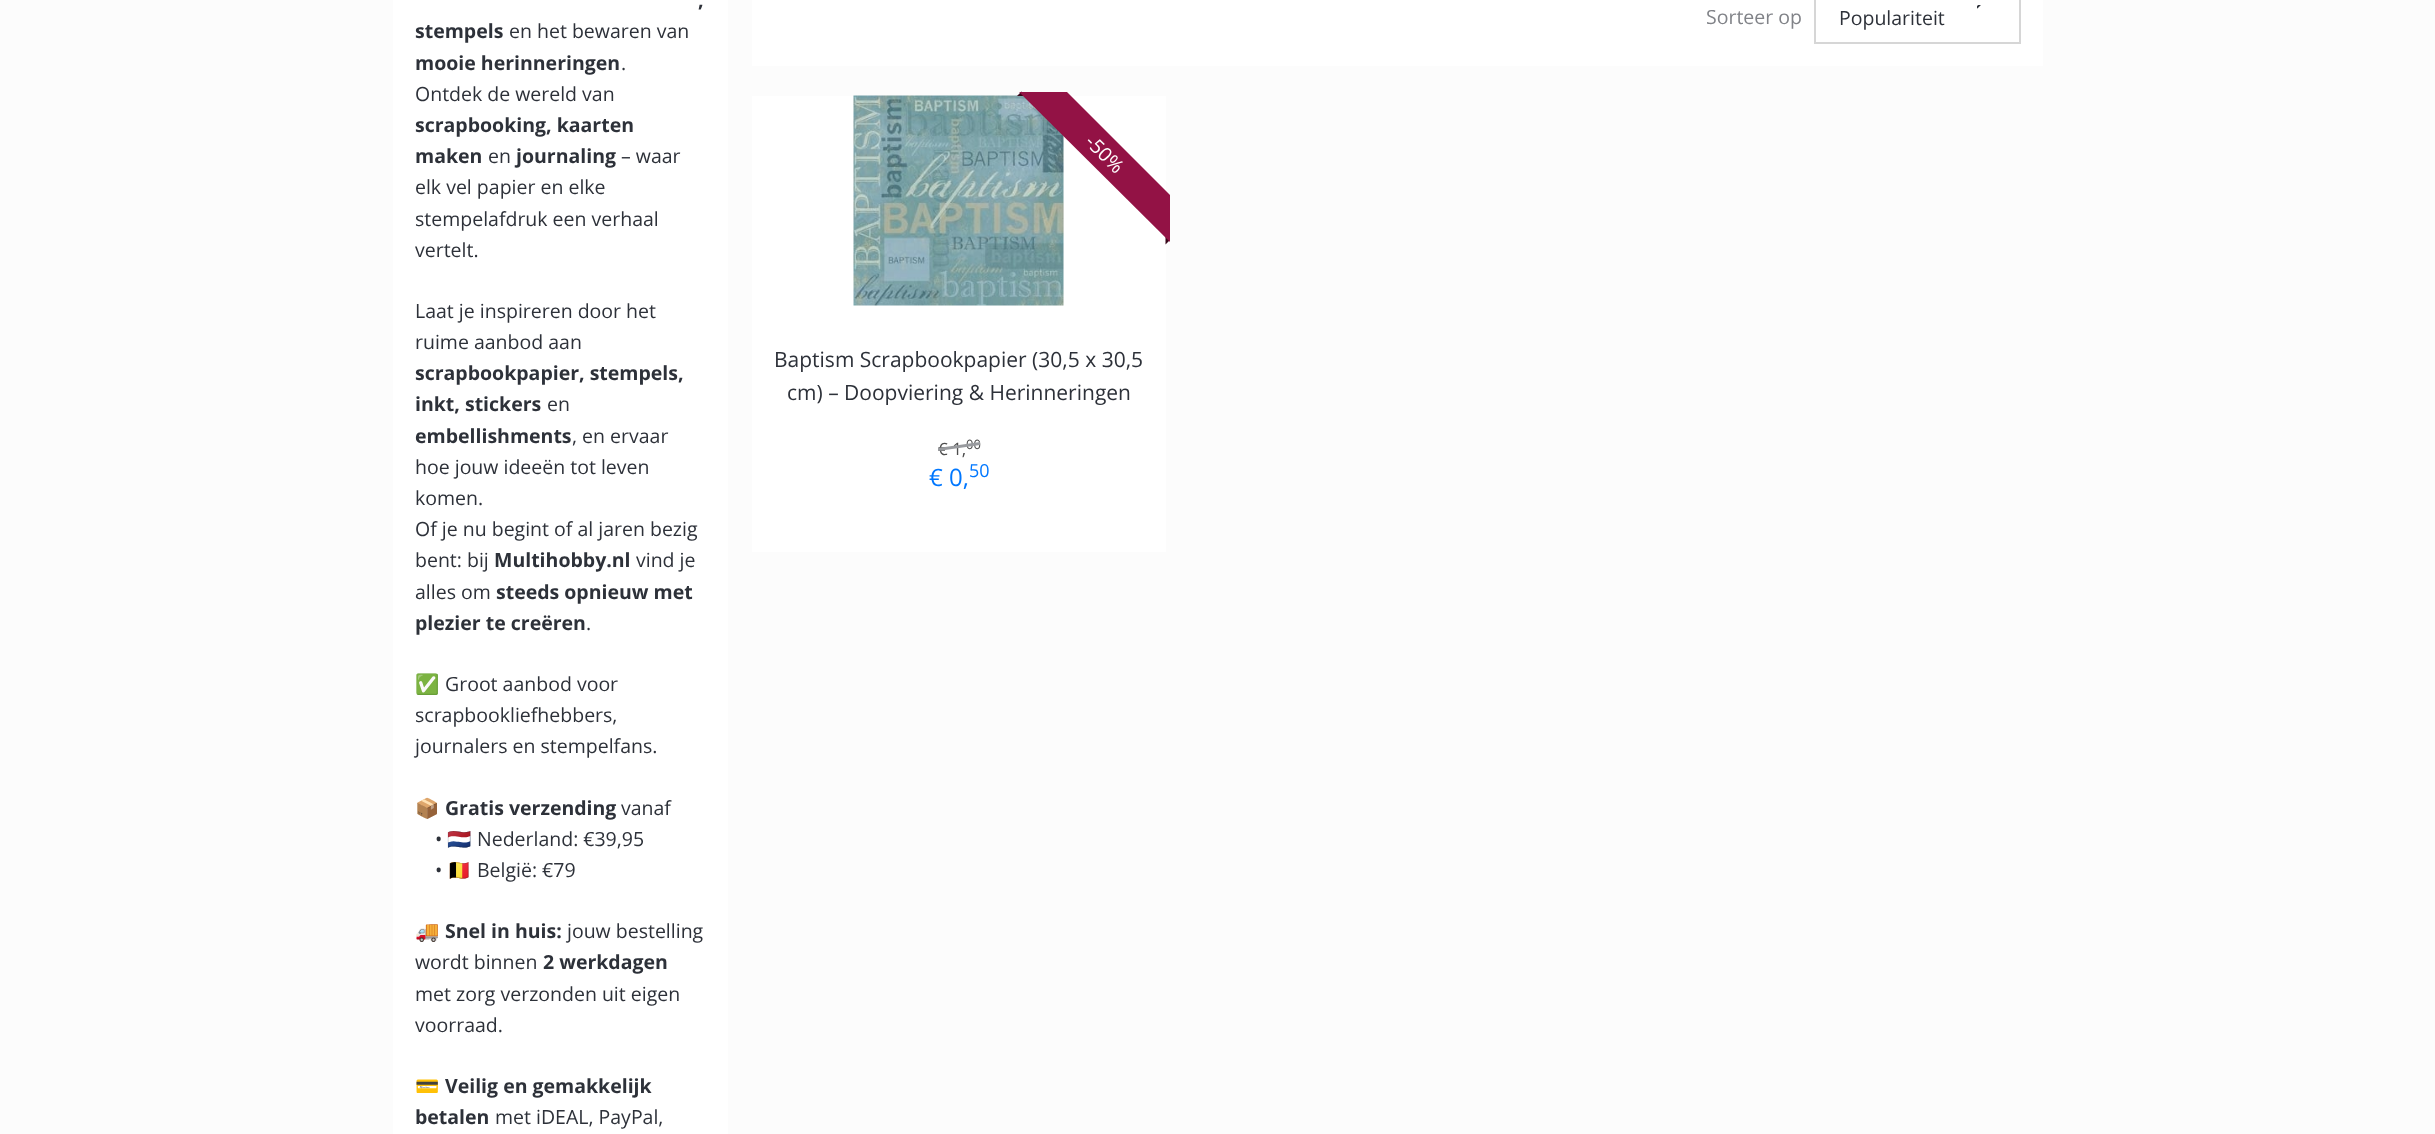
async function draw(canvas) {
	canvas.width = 2435;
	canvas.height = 1134;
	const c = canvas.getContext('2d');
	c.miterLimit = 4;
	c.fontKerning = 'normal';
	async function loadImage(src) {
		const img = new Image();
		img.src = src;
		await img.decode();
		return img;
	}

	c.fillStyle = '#fcfcfc';
	c.fillRect(0, 0, 2435, 1134);
	c.fillStyle = '#fff';
	c.fillRect(393, 0, 335, 1134);
	c.font = 'bold 19.5px Open Sans';
	c.fillStyle = '#2d3139';
	c.fillText(',', 698, 7);
	c.fillText('stempels', 415, 38);
	c.font = '19.5px Open Sans';
	c.fillText('en het bewaren van', 509, 38);
	c.font = 'bold 19.5px Open Sans';
	c.fillText('mooie herinneringen', 415, 70);
	c.font = '19.5px Open Sans';
	c.fillText('.', 621, 70);
	c.fillText('Ontdek de wereld van', 415, 101);
	c.font = 'bold 19.5px Open Sans';
	c.fillText('scrapbooking, kaarten', 415, 132);
	c.fillText('maken', 415, 163);
	c.font = '19.5px Open Sans';
	c.fillText('en', 488, 163);
	c.font = 'bold 19.5px Open Sans';
	c.fillText('journaling', 516, 163);
	c.font = '19.5px Open Sans';
	for (const [text, x, y] of [
		['– waar', 621, 163],
		['elk vel papier en elke', 415, 194],
		['stempelafdruk een verhaal', 415, 226],
		['vertelt.', 415, 257],
		['Laat je inspireren door het', 415, 318],
		['ruime aanbod aan', 415, 349],
	]) {
		c.fillText(text, x, y);
	}
	c.font = 'bold 19.5px Open Sans';
	c.fillText('scrapbookpapier, stempels,', 415, 380);
	c.fillText('inkt, stickers', 415, 411);
	c.font = '19.5px Open Sans';
	c.fillText('en', 547, 411);
	c.font = 'bold 19.5px Open Sans';
	c.fillText('embellishments', 415, 443);
	c.font = '19.5px Open Sans';
	for (const [text, x, y] of [
		[', en ervaar', 572, 443],
		['hoe jouw ideeën tot leven', 415, 474],
		['komen.', 415, 505],
		['Of je nu begint of al jaren bezig', 415, 536],
		['bent: bij', 415, 567],
	]) {
		c.fillText(text, x, y);
	}
	c.font = 'bold 19.5px Open Sans';
	c.fillText('Multihobby.nl', 494, 567);
	c.font = '19.5px Open Sans';
	c.fillText('vind je', 636, 567);
	c.fillText('alles om', 415, 599);
	c.font = 'bold 19.5px Open Sans';
	c.fillText('steeds opnieuw met', 496, 599);
	c.fillText('plezier te creëren', 415, 630);
	c.font = '19.5px Open Sans';
	c.fillText('.', 586, 630);
	c.font = '19.5px Noto Color Emoji';
	c.fillText('✅', 415, 691);
	c.font = '19.5px Open Sans';
	for (const [text, x, y] of [
		['Groot aanbod voor', 445, 691],
		['scrapbookliefhebbers,', 415, 722],
		['journalers en stempelfans.', 415, 753],
	]) {
		c.fillText(text, x, y);
	}
	c.font = '19.5px Noto Color Emoji';
	c.fillText('📦', 415, 815);
	c.font = 'bold 19.5px Open Sans';
	c.fillText('Gratis verzending', 445, 815);
	c.font = '19.5px Open Sans';
	c.fillText('vanaf', 621, 815);
	c.fillText('•', 435, 846);
	c.font = '19.5px Noto Color Emoji';
	c.fillText('🇳🇱', 447, 846);
	c.font = '19.5px Open Sans';
	c.fillText('Nederland: €39,95', 477, 846);
	c.fillText('•', 435, 877);
	c.font = '19.5px Noto Color Emoji';
	c.fillText('🇧🇪', 447, 877);
	c.font = '19.5px Open Sans';
	c.fillText('België: €79', 477, 877);
	c.font = '19.5px Noto Color Emoji';
	c.fillText('🚚', 415, 938);
	c.font = 'bold 19.5px Open Sans';
	c.fillText('Snel in huis:', 445, 938);
	c.font = '19.5px Open Sans';
	c.fillText('jouw bestelling', 567, 938);
	c.fillText('wordt binnen', 415, 969);
	c.font = 'bold 19.5px Open Sans';
	c.fillText('2 werkdagen', 543, 969);
	c.font = '19.5px Open Sans';
	c.fillText('met zorg verzonden uit eigen', 415, 1001);
	c.fillText('voorraad.', 415, 1032);
	c.font = '19.5px Noto Color Emoji';
	c.fillText('💳', 415, 1093);
	c.font = 'bold 19.5px Open Sans';
	c.fillText('Veilig en gemakkelijk', 445, 1093);
	c.fillText('betalen', 415, 1124);
	c.font = '19.5px Open Sans';
	c.fillText('met iDEAL, PayPal,', 495, 1124);
	c.fillStyle = '#fff';
	c.fillRect(752, 0, 1291, 66);
	c.fillStyle = '#818388';
	c.fillText('Sorteer op', 1706, 24);
	c.strokeStyle = '#d6d6d6';
	c.lineWidth = 2;
	c.strokeRect(1815, -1, 205, 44);
	c.drawImage(await loadImage('img1.png'), 1977, 5, 4, 4);
	c.fillStyle = '#2d3139';
	c.fillText('Populariteit', 1839, 25);
	c.fillStyle = '#fff';
	c.fillRect(752, 96, 414, 456);
	c.drawImage(await loadImage('img2.png'), 853, 95, 211, 211);
	c.fillStyle = '#38071a';
	c.beginPath();
	c.moveTo(1026, 96);
	c.lineTo(1017, 96);
	c.lineTo(1021.5, 91.5);
	c.closePath();
	c.fill();
	c.beginPath();
	c.moveTo(1165.5, 244.5);
	c.lineTo(1165.5, 235.5);
	c.lineTo(1170, 240);
	c.closePath();
	c.fill();
	c.save();
	c.beginPath();
	c.rect(990, 92, 180, 180);
	c.clip();
	c.fillStyle = '#931245';
	c.beginPath();
	c.moveTo(1037, 62);
	c.lineTo(1196, 221);
	c.lineTo(1173, 245);
	c.lineTo(1013, 86);
	c.closePath();
	c.fill();
	c.restore();
	c.fillStyle = '#fff';
	c.save();
	c.translate(1084, 143);
	c.rotate(45 * Math.PI / 180);
	c.fillText('-50%', 0, 0);
	c.restore();
	c.font = '21px Open Sans';
	c.fillStyle = '#2d3139';
	c.fillText('Baptism Scrapbookpapier (30,5 x 30,5', 774, 367);
	c.fillText('cm) – Doopviering & Herinneringen', 787, 400);
	c.font = '17px Open Sans';
	c.fillStyle = '#4d4d4d';
	c.fillText('€ 1,', 938, 455);
	c.font = '13px Open Sans';
	c.fillText('00', 966, 449);
	c.fillStyle = '#989a9e';
	c.beginPath();
	c.moveTo(938, 448);
	c.lineTo(980, 442);
	c.lineTo(980, 445);
	c.lineTo(938, 451);
	c.closePath();
	c.fill();
	c.font = '24px Open Sans';
	c.fillStyle = '#07f';
	c.fillText('€ 0,', 929, 486);
	c.font = '18px Open Sans';
	c.fillText('50', 969, 477);
}

draw(document.querySelector('canvas'));
